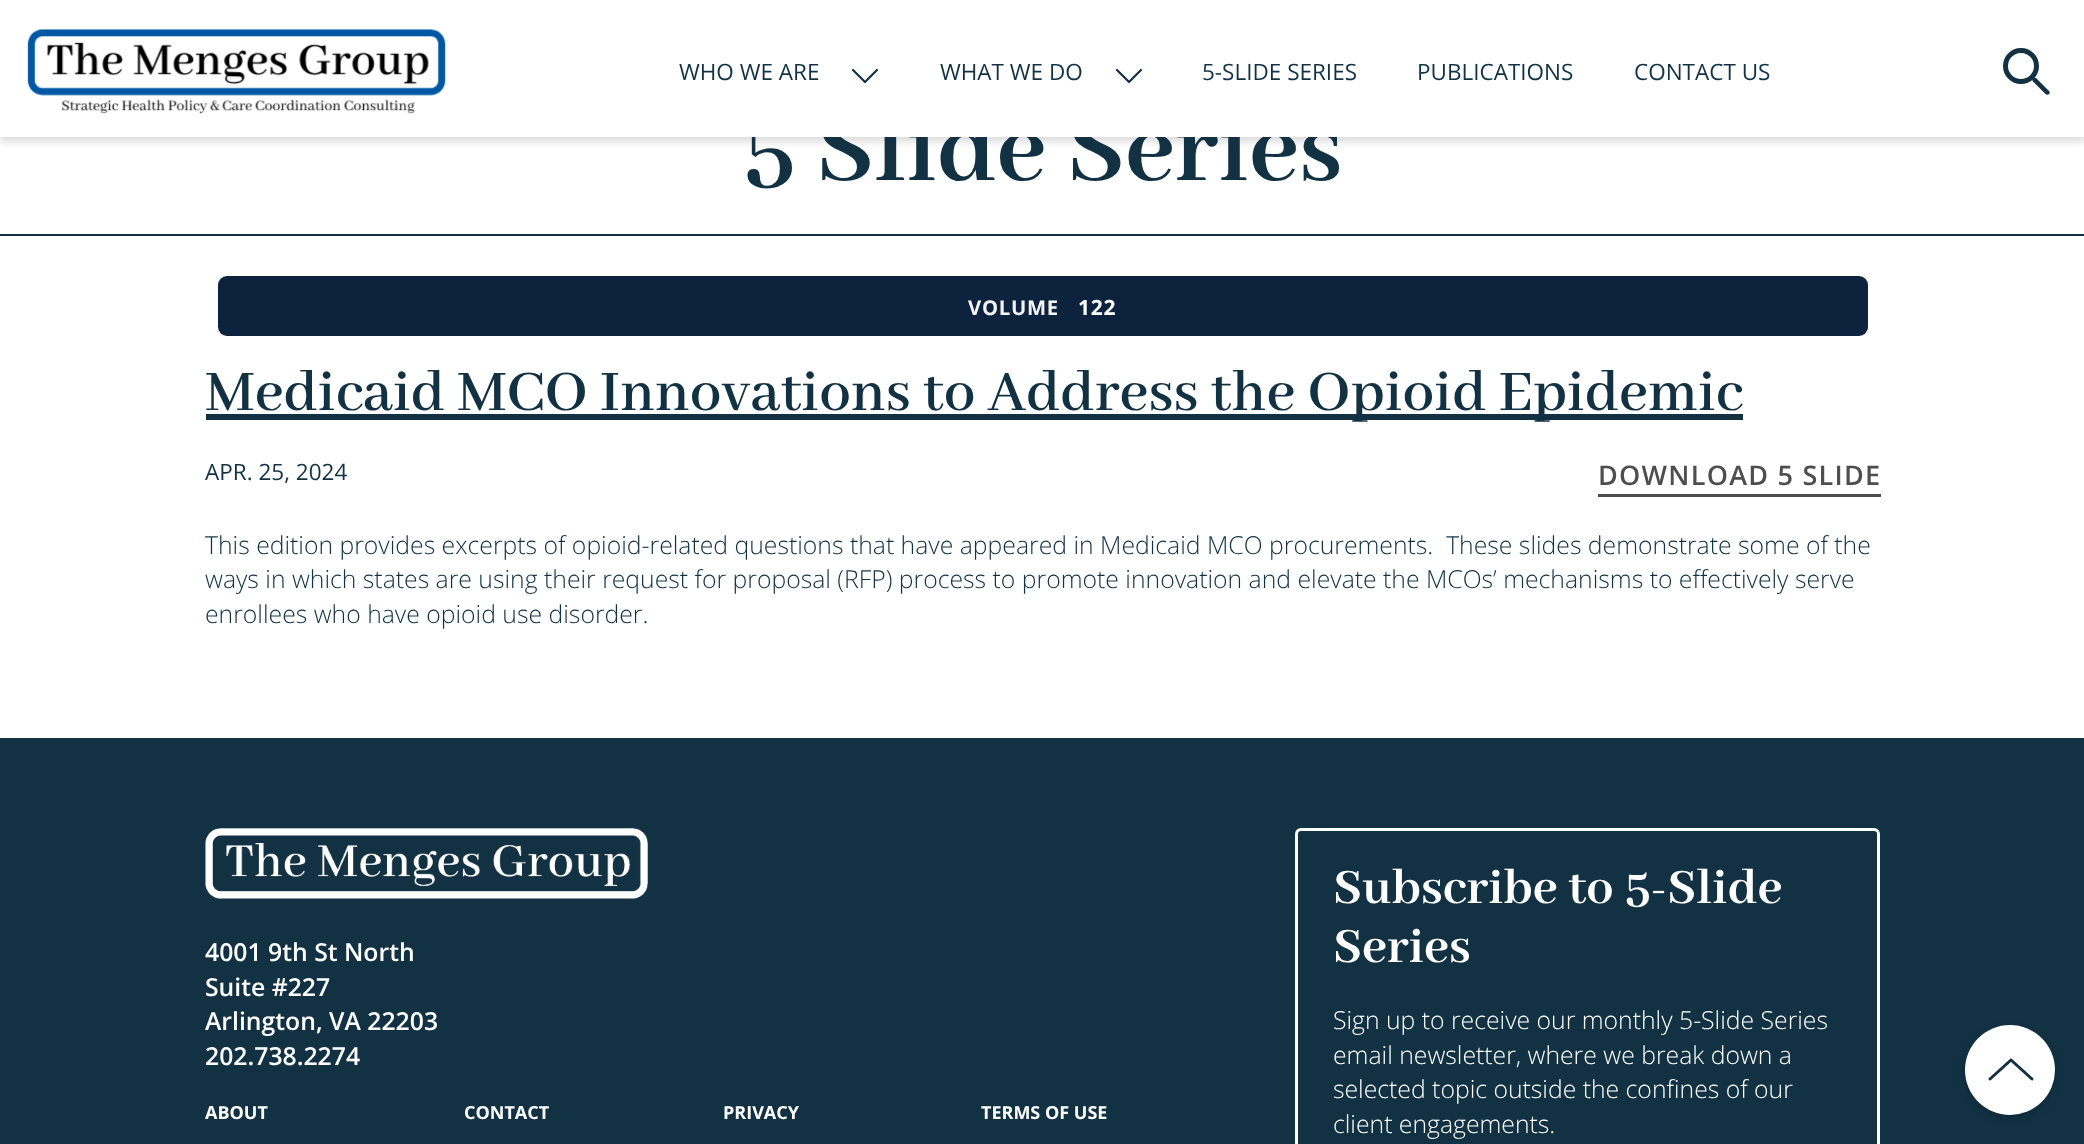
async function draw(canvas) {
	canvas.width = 2084;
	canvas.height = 1144;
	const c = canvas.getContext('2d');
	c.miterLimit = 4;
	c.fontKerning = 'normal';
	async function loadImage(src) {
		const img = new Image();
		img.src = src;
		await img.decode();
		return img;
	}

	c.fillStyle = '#fff';
	c.fillRect(0, 0, 2084, 1144);
	c.fillStyle = '#00000029';
	c.filter = 'blur(4.5px)';
	c.beginPath();
	c.rect(0, 5, 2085, 136);
	c.fill();
	c.filter = 'none';
	c.font = 'bold 108px Abhaya Libre';
	c.fillStyle = '#123244';
	c.fillText('5 Slide Series', 742, 180);
	c.fillStyle = '#fff';
	c.fillRect(0, 0, 2084, 137);
	c.drawImage(await loadImage('img1.png'), 27, 29, 419, 85);
	c.font = '22.5px Open Sans';
	c.fillStyle = '#123244';
	c.fillText('WHO WE ARE', 679, 80);
	c.beginPath();
	c.moveTo(877, 70);
	c.lineTo(865, 82);
	c.moveTo(853, 70);
	c.lineTo(865, 82);
	c.strokeStyle = '#123244';
	c.lineWidth = 2.2;
	c.lineCap = 'round';
	c.stroke();
	c.fillText('WHAT WE DO', 940, 80);
	c.beginPath();
	c.moveTo(1141, 70);
	c.lineTo(1129, 82);
	c.moveTo(1117, 70);
	c.lineTo(1129, 82);
	c.stroke();
	for (const [text, x, y] of [
		['5-SLIDE SERIES', 1202, 80],
		['PUBLICATIONS', 1417, 80],
		['CONTACT US', 1634, 80],
	]) {
		c.fillText(text, x, y);
	}
	c.beginPath();
	c.arc(2021, 66, 15.5, 0, 2 * Math.PI);
	c.lineWidth = 5;
	c.stroke();
	c.beginPath();
	c.moveTo(2033, 78);
	c.bezierCurveTo(2034, 77.5, 2035.5, 77.5, 2036, 78);
	c.lineTo(2049, 91);
	c.bezierCurveTo(2050, 92, 2050, 93, 2049, 94);
	c.bezierCurveTo(2048, 95, 2046.5, 95, 2045.5, 94);
	c.lineTo(2033, 81.5);
	c.bezierCurveTo(2032, 80.5, 2032, 79, 2033, 78);
	c.closePath();
	c.fill();
	c.fillRect(0, 234, 2084, 2);
	c.fillStyle = '#0d233d';
	c.beginPath();
	c.roundRect(218, 276, 1650, 60, 9);
	c.fill();
	c.letterSpacing = '0.75px';
	c.font = 'bold 20.25px Open Sans';
	c.fillStyle = '#f3f4f5';
	c.fillText('VOLUME', 968, 315);
	c.font = 'bold 21px Open Sans';
	c.fillStyle = '#fff';
	c.fillText('122', 1078, 315);
	c.fillStyle = '#123244';
	c.fillRect(206, 414, 1537, 6);
	c.letterSpacing = '0px';
	c.font = '600 63px Abhaya Libre';
	c.fillText('Medicaid MCO Innovations to Address the Opioid Epidemic', 205, 410);
	c.font = '22.5px Open Sans';
	c.fillText('APR. 25, 2024', 205, 480);
	c.fillStyle = '#4e4e4e';
	c.fillRect(1598, 494, 283, 3);
	c.letterSpacing = '1.25px';
	c.font = '600 27px Open Sans';
	c.fillText('DOWNLOAD 5 SLIDE', 1598, 485);
	c.letterSpacing = '0px';
	c.font = '300 24.75px Open Sans';
	c.fillStyle = '#123244';
	for (const [text, x, y] of [
		['This edition provides excerpts of opioid-related questions that have appeared in Medicaid MCO procurements.  These slides demonstrate some of the', 205, 554],
		['ways in which states are using their request for proposal (RFP) process to promote innovation and elevate the MCOs’ mechanisms to effectively serve', 205, 588],
		['enrollees who have opioid use disorder.', 205, 623],
	]) {
		c.fillText(text, x, y);
	}
	c.fillRect(0, 738, 2084, 406);
	c.drawImage(await loadImage('img2.png'), 205, 828, 443, 71);
	c.font = '600 24.75px Open Sans';
	c.fillStyle = '#fff';
	for (const [text, x, y] of [
		['4001 9th St North', 205, 961],
		['Suite #227', 205, 996],
		['Arlington, VA 22203', 205, 1030],
		['202.738.2274', 205, 1065],
	]) {
		c.fillText(text, x, y);
	}
	c.font = 'bold 18px Open Sans';
	for (const [text, x, y] of [
		['ABOUT', 205, 1119],
		['CONTACT', 464, 1119],
		['PRIVACY', 723, 1119],
		['TERMS OF USE', 981, 1119],
	]) {
		c.fillText(text, x, y);
	}
	c.beginPath();
	c.roundRect(1296.5, 829.5, 582, 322, 4.5);
	c.strokeStyle = '#fff';
	c.lineWidth = 3;
	c.stroke();
	c.font = 'bold 54px Abhaya Libre';
	c.fillText('Subscribe to 5-Slide', 1333, 903);
	c.fillText('Series', 1333, 962);
	c.font = '300 24.75px Open Sans';
	for (const [text, x, y] of [
		['Sign up to receive our monthly 5-Slide Series', 1333, 1029],
		['email newsletter, where we break down a', 1333, 1064],
		['selected topic outside the confines of our', 1333, 1098],
		['client engagements.', 1333, 1133],
	]) {
		c.fillText(text, x, y);
	}
	c.fillStyle = '#00000029';
	c.filter = 'blur(4.5px)';
	c.beginPath();
	c.roundRect(1965, 1029, 90, 90, 45);
	c.fill();
	c.filter = 'none';
	c.fillStyle = '#fff';
	c.beginPath();
	c.arc(2010, 1070, 45, 0, 2 * Math.PI);
	c.fill();
	c.beginPath();
	c.moveTo(1990, 1079);
	c.lineTo(2011, 1060);
	c.moveTo(2032, 1079);
	c.lineTo(2011, 1060);
	c.strokeStyle = '#123244';
	c.stroke();
}

draw(document.querySelector('canvas'));
